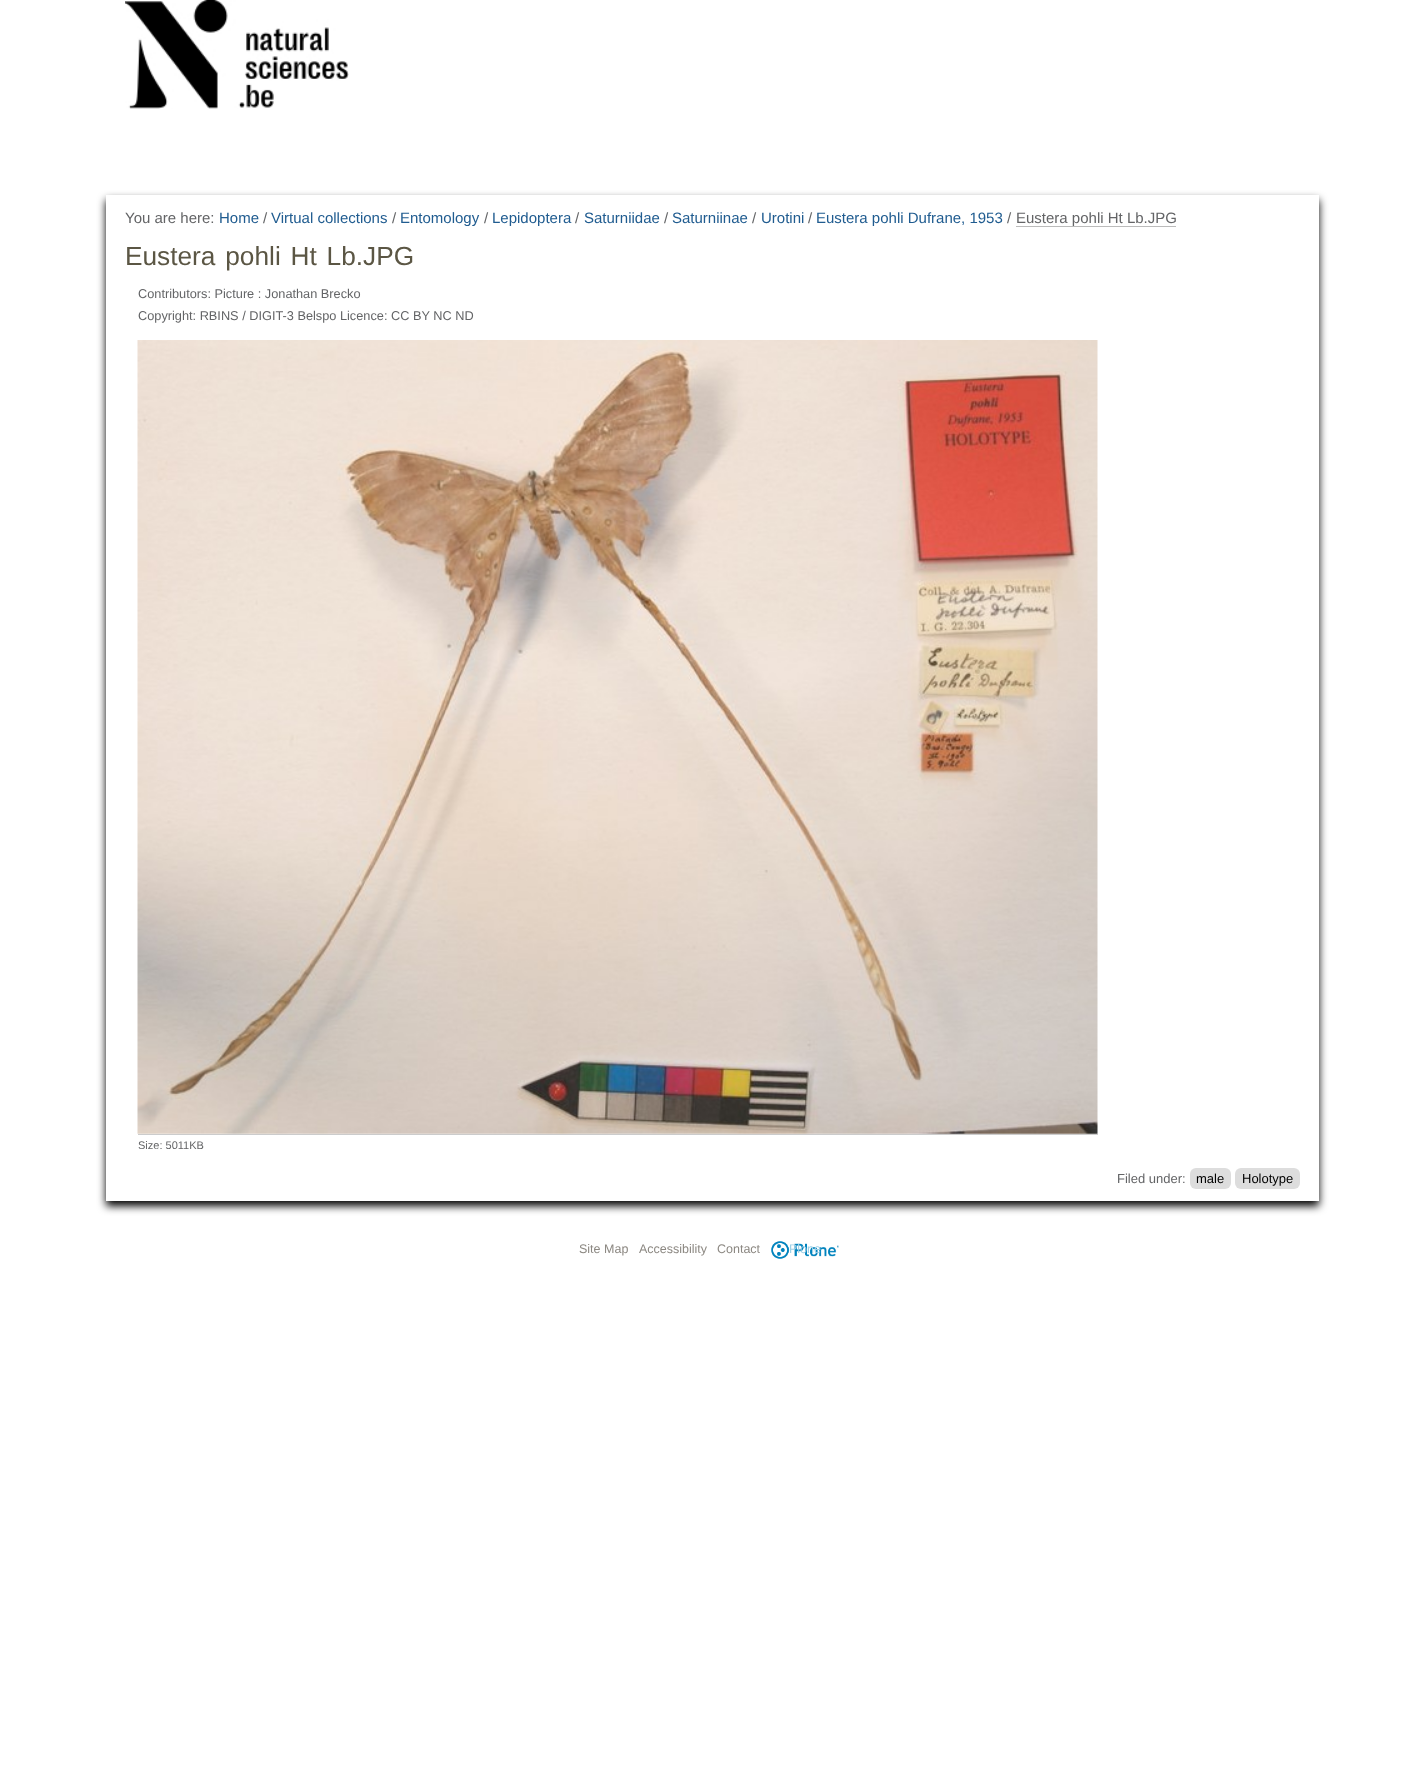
async function draw(canvas) {
	canvas.width = 1425;
	canvas.height = 1786;
	const c = canvas.getContext('2d');
	c.miterLimit = 4;
	c.fontKerning = 'normal';
	async function loadImage(src) {
		const img = new Image();
		img.src = src;
		await img.decode();
		return img;
	}

	c.fillStyle = '#fff';
	c.fillRect(0, 0, 1425, 1786);
	c.drawImage(await loadImage('img1.png'), 125, 0, 224, 109);
	c.fillStyle = '#000';
	c.filter = 'blur(4.5px)';
	c.beginPath();
	c.rect(106, 200, 1213, 1006);
	c.fill();
	c.filter = 'none';
	c.fillStyle = '#fff';
	c.fillRect(106, 195, 1213, 1006);
	c.font = '15px Liberation Sans';
	c.fillStyle = '#636466';
	c.fillText('You are here:', 125, 223);
	c.fillStyle = '#205c90';
	c.fillText('Home', 219, 223);
	c.fillStyle = '#636466';
	c.fillText('/', 263, 223);
	c.fillStyle = '#205c90';
	c.fillText('Virtual collections', 271, 223);
	c.fillStyle = '#636466';
	c.fillText('/', 392, 223);
	c.fillStyle = '#205c90';
	c.fillText('Entomology', 400, 223);
	c.fillStyle = '#636466';
	c.fillText('/', 484, 223);
	c.fillStyle = '#205c90';
	c.fillText('Lepidoptera', 492, 223);
	c.fillStyle = '#636466';
	c.fillText('/', 575, 223);
	c.fillStyle = '#205c90';
	c.fillText('Saturniidae', 584, 223);
	c.fillStyle = '#636466';
	c.fillText('/', 664, 223);
	c.fillStyle = '#205c90';
	c.fillText('Saturniinae', 672, 223);
	c.fillStyle = '#636466';
	c.fillText('/', 752, 223);
	c.fillStyle = '#205c90';
	c.fillText('Urotini', 761, 223);
	c.fillStyle = '#636466';
	c.fillText('/', 808, 223);
	c.fillStyle = '#205c90';
	c.fillText('Eustera pohli Dufrane, 1953', 816, 223);
	c.fillStyle = '#636466';
	c.fillText('/', 1007, 223);
	c.fillStyle = '#bbb';
	c.fillRect(1016, 226, 160, 1);
	c.fillStyle = '#636466';
	c.fillText('Eustera pohli Ht Lb.JPG', 1016, 223);
	c.wordSpacing = '2.5px';
	c.font = '26.25px Liberation Sans';
	c.fillStyle = '#5b5644';
	c.fillText('Eustera pohli Ht Lb.JPG', 125, 265);
	c.wordSpacing = '0px';
	c.font = '12.75px Liberation Sans';
	c.fillStyle = '#636466';
	c.fillText('Contributors: Picture : Jonathan Brecko', 138, 298);
	c.fillText('Copyright: RBINS / DIGIT-3 Belspo Licence: CC BY NC ND', 138, 320);
	c.fillStyle = '#ccc';
	c.fillRect(138, 1134, 960, 1);
	c.drawImage(await loadImage('img2.png'), 137, 340, 961, 794);
	c.font = '11px Liberation Sans';
	c.fillStyle = '#636466';
	c.fillText('Size: 5011KB', 138, 1149);
	c.font = '13px Liberation Sans';
	c.fillText('Filed under:', 1117, 1183);
	c.fillStyle = '#ddd';
	c.beginPath();
	c.roundRect(1190, 1168, 41, 21, 6);
	c.fill();
	c.fillStyle = '#000';
	c.fillText('male', 1196, 1183);
	c.fillStyle = '#ddd';
	c.beginPath();
	c.roundRect(1235, 1168, 65, 21, 6);
	c.fill();
	c.fillStyle = '#000';
	c.fillText('Holotype', 1242, 1183);
	c.font = '12.5px Liberation Sans';
	c.fillStyle = '#8c8882';
	for (const [text, x, y] of [
		['Site Map', 579, 1253],
		['Accessibility', 639, 1253],
		['Contact', 717, 1253],
	]) {
		c.fillText(text, x, y);
	}
	c.drawImage(await loadImage('img3.png'), 771, 1241, 68, 18);
	c.fillStyle = '#9dcfe5';
	c.fillText('Plone', 789, 1253);
}

draw(document.querySelector('canvas'));
